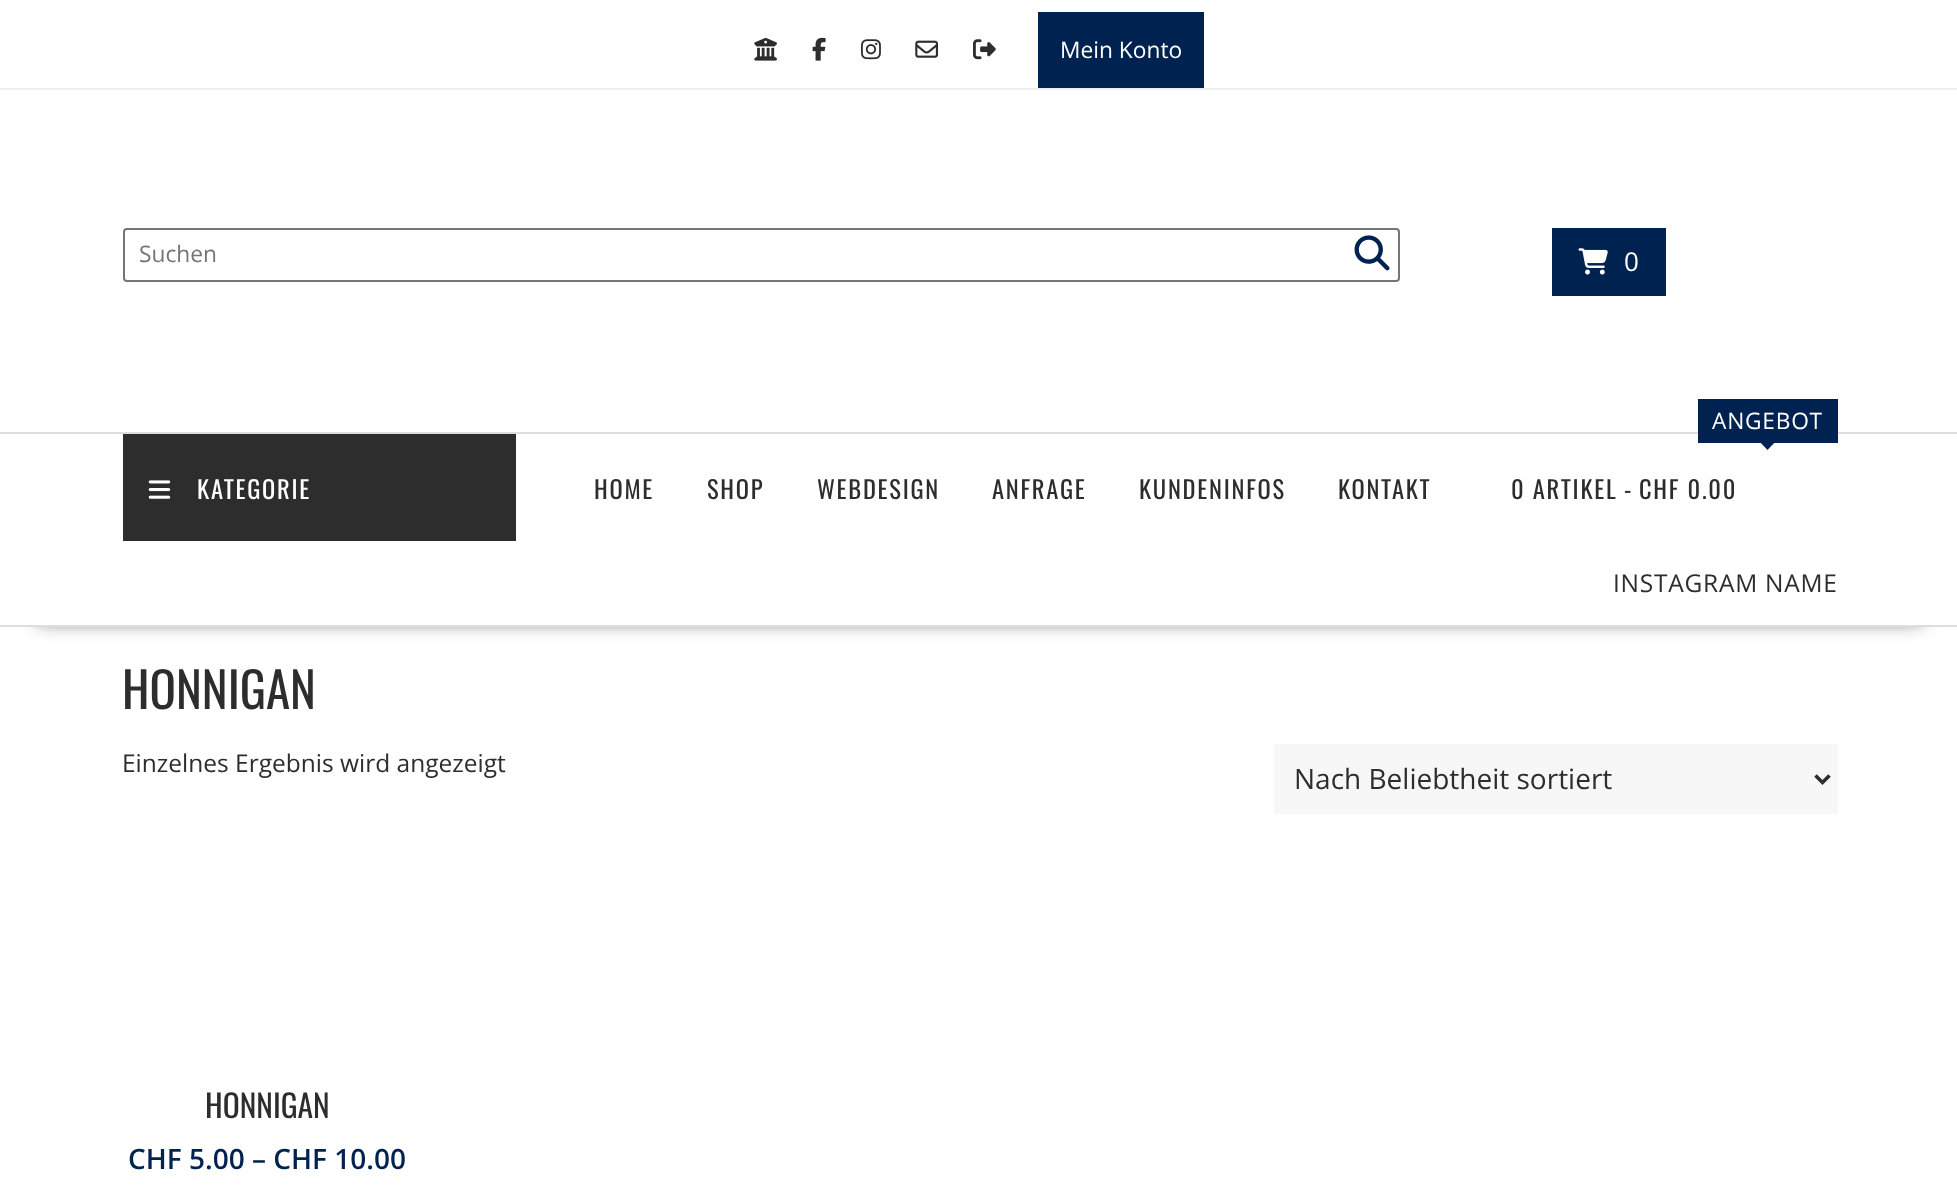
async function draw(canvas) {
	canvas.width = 1957;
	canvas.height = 1203;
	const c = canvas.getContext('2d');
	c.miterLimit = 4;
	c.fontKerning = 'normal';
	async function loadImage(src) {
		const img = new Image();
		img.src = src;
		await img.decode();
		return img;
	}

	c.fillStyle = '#fff';
	c.fillRect(0, 0, 1957, 1203);
	c.fillStyle = '#eee';
	c.fillRect(0, 88, 1957, 2);
	c.drawImage(await loadImage('img1.png'), 754, 37, 23, 24);
	c.drawImage(await loadImage('img2.png'), 812, 37, 14, 24);
	c.drawImage(await loadImage('img3.png'), 861, 39, 20, 21);
	c.drawImage(await loadImage('img4.png'), 915, 40, 23, 18);
	c.drawImage(await loadImage('img5.png'), 973, 39, 23, 21);
	c.fillStyle = '#002250';
	c.fillRect(1038, 12, 166, 76);
	c.font = '22.75px Open Sans';
	c.fillStyle = '#fff';
	c.fillText('Mein Konto', 1060, 58);
	c.beginPath();
	c.roundRect(124, 229, 1275, 52, 3);
	c.strokeStyle = '#767676';
	c.lineWidth = 2;
	c.stroke();
	c.fillStyle = '#757575';
	c.fillText('Suchen', 139, 262);
	c.drawImage(await loadImage('img6.png'), 1354, 235, 36, 36);
	c.fillStyle = '#002250';
	c.fillRect(1552, 228, 114, 68);
	c.drawImage(await loadImage('img7.png'), 1578, 248, 30, 27);
	c.font = '26px Open Sans';
	c.fillStyle = '#fff';
	c.fillText('0', 1624, 271);
	c.fillStyle = '#000000bf';
	c.filter = 'blur(9.5px)';
	c.beginPath();
	c.rect(37, 499, 1885, 121);
	c.fill();
	c.filter = 'none';
	for (const [x, y, w, h, color] of [
		[16, 478, 1927, 147, '#fff'],
		[0, 432, 1957, 2, '#dedede'],
		[0, 625, 1957, 2, '#dedede'],
		[123, 434, 393, 107, '#2d2d2d'],
	]) {
		c.fillStyle = color;
		c.fillRect(x, y, w, h);
	}
	c.drawImage(await loadImage('img8.png'), 148, 480, 23, 19);
	c.letterSpacing = '1.75px';
	c.font = '24.5px Oswald';
	c.fillStyle = '#fff';
	c.fillText('KATEGORIE', 197, 499);
	c.fillStyle = '#002250';
	c.fillRect(1698, 399, 140, 44);
	c.letterSpacing = '0.75px';
	c.font = '22.75px Open Sans';
	c.fillStyle = '#fff';
	c.fillText('ANGEBOT', 1712, 429);
	c.fillStyle = '#002250';
	c.beginPath();
	c.moveTo(1759, 441);
	c.lineTo(1776, 441);
	c.lineTo(1767.5, 450);
	c.closePath();
	c.fill();
	c.font = '24.5px Open Sans';
	c.fillStyle = '#2d2d2d';
	c.fillText('INSTAGRAM NAME', 1613, 592);
	c.letterSpacing = '1.75px';
	c.font = '24.5px Oswald';
	for (const [text, x, y] of [
		['HOME', 594, 499],
		['SHOP', 707, 499],
		['WEBDESIGN', 817, 499],
		['ANFRAGE', 992, 499],
		['KUNDENINFOS', 1139, 499],
		['KONTAKT', 1338, 499],
		['0 ARTIKEL', 1511, 499],
		['-', 1624, 499],
		['CHF 0.00', 1639, 499],
	]) {
		c.fillText(text, x, y);
	}
	c.letterSpacing = '0px';
	c.font = '49px Oswald';
	c.fillText('HONNIGAN', 122, 709);
	c.font = '24.5px Open Sans';
	c.fillText('Einzelnes Ergebnis wird angezeigt', 122, 772);
	c.fillStyle = '#f7f7f7';
	c.fillRect(1274, 744, 564, 70);
	c.beginPath();
	c.moveTo(1815.5, 775.5);
	c.lineTo(1822.5, 782.5);
	c.lineTo(1829.5, 775.5);
	c.strokeStyle = '#2d2d2d';
	c.lineWidth = 3.5;
	c.stroke();
	c.font = '28px Open Sans';
	c.fillStyle = '#2d2d2d';
	c.fillText('Nach Beliebtheit sortiert', 1294, 789);
	c.font = '31.5px Oswald';
	c.fillText('HONNIGAN', 205, 1118);
	c.font = '600 28px Open Sans';
	c.fillStyle = '#002250';
	c.fillText('CHF 5.00 – CHF 10.00', 128, 1169);
}

draw(document.querySelector('canvas'));
